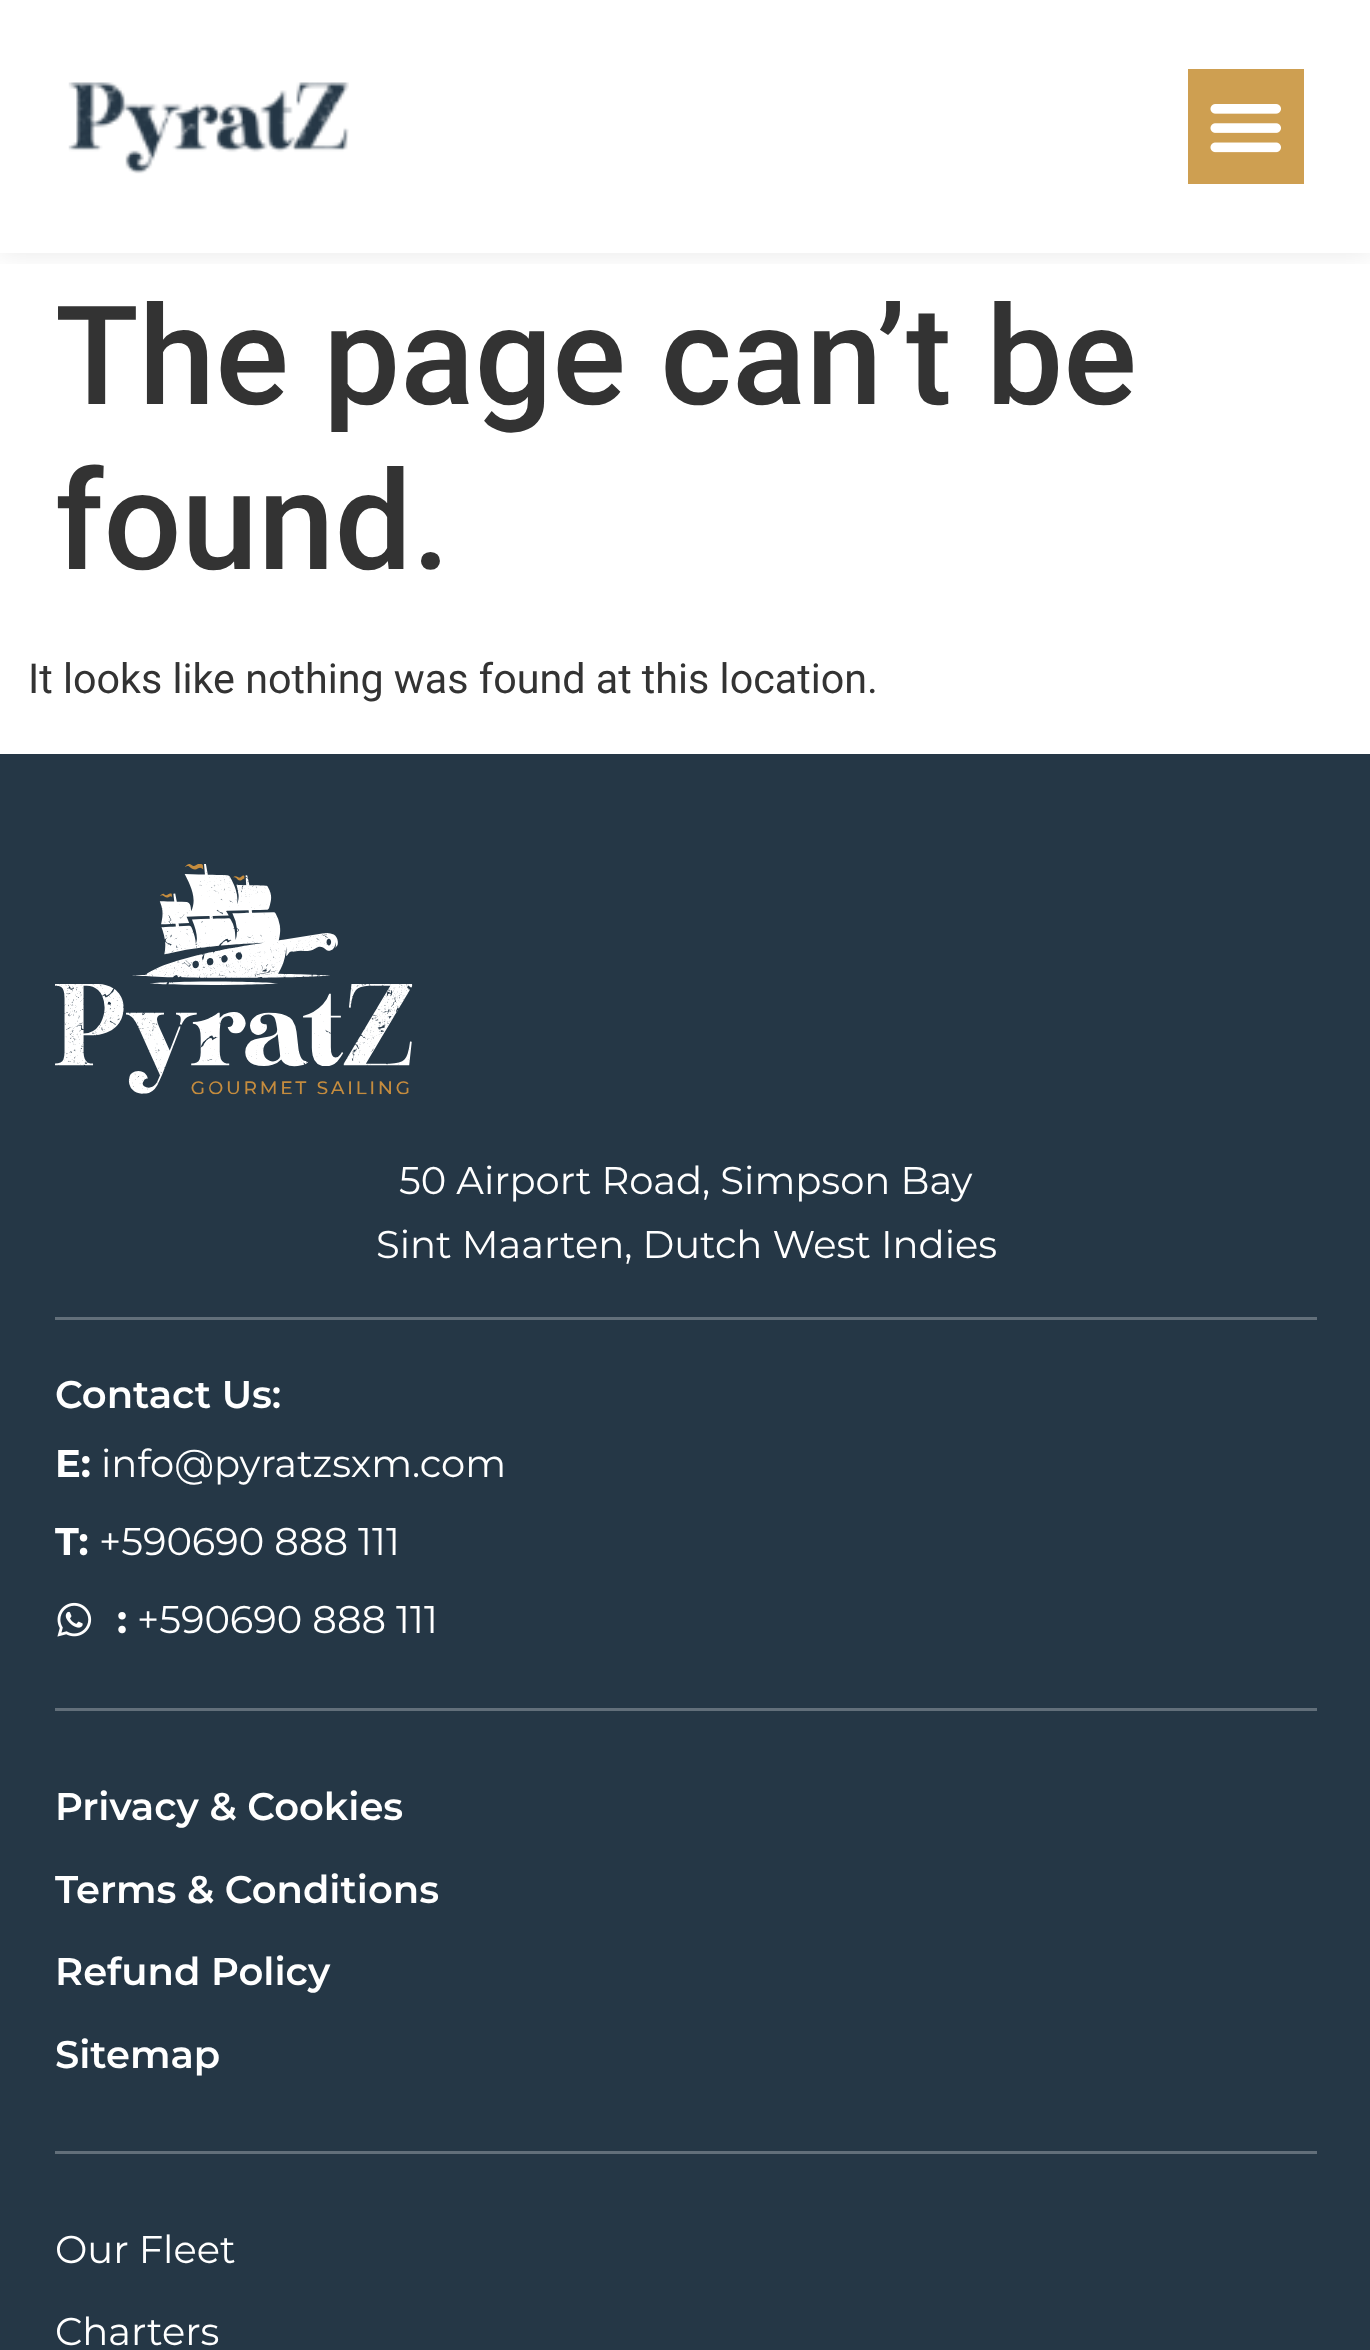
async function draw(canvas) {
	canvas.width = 1370;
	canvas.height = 2350;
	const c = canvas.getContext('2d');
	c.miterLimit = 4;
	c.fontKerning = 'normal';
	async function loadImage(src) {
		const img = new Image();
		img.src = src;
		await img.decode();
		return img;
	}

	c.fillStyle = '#fff';
	c.fillRect(0, 0, 1370, 2350);
	c.save();
	c.beginPath();
	c.rect(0, 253, 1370, 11);
	c.clip();
	c.fillStyle = '#00000017';
	c.filter = 'blur(14px)';
	c.beginPath();
	c.rect(0, 0, 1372, 253);
	c.fill();
	c.filter = 'none';
	c.restore();
	c.drawImage(await loadImage('img1.png'), 68, 82, 281, 92);
	c.fillStyle = '#ce9f51';
	c.fillRect(1188, 69, 116, 115);
	c.drawImage(await loadImage('img2.png'), 1210, 104, 71, 49);
	c.font = '500 137.5px Roboto';
	c.fillStyle = '#333';
	c.fillText('The page can’t be', 55, 404);
	c.fillText('found.', 55, 569);
	c.font = '41.25px Roboto';
	c.fillText('It looks like nothing was found at this location.', 28, 693);
	c.fillStyle = '#253746';
	c.fillRect(0, 754, 1370, 1596);
	c.drawImage(await loadImage('img3.png'), 55, 864, 358, 231);
	c.font = '38.5px Montserrat';
	c.fillStyle = '#fff';
	c.fillText('50 Airport Road, Simpson Bay', 399, 1194);
	c.fillText('Sint Maarten, Dutch West Indies', 376, 1258);
	c.fillStyle = '#626f7a';
	c.fillRect(55, 1317, 1262, 3);
	c.font = '600 38.5px Montserrat';
	c.fillStyle = '#fff';
	c.fillText('Contact Us:', 55, 1408);
	c.font = 'bold 38.5px Montserrat';
	c.fillText('E:', 55, 1477);
	c.font = '38.5px Montserrat';
	c.fillText('info@pyratzsxm.com', 101, 1477);
	c.font = 'bold 38.5px Montserrat';
	c.fillText('T:', 55, 1555);
	c.font = '38.5px Montserrat';
	c.fillText('+590690 888 111', 99, 1555);
	c.drawImage(await loadImage('img4.png'), 57, 1602, 35, 35);
	c.font = 'bold 38.5px Montserrat';
	c.fillText(':', 117, 1633);
	c.font = '38.5px Montserrat';
	c.fillText('+590690 888 111', 137, 1633);
	c.fillStyle = '#626f7a';
	c.fillRect(55, 1708, 1262, 3);
	c.fillRect(55, 2151, 1262, 3);
	c.font = '600 38.5px Montserrat';
	c.fillStyle = '#fff';
	for (const [text, x, y] of [
		['Privacy & Cookies', 55, 1820],
		['Terms & Conditions', 55, 1903],
		['Refund Policy', 55, 1985],
		['Sitemap', 55, 2068],
	]) {
		c.fillText(text, x, y);
	}
	c.font = '38.5px Montserrat';
	c.fillText('Our Fleet', 55, 2263);
	c.fillText('Charters', 55, 2345);
}

draw(document.querySelector('canvas'));
